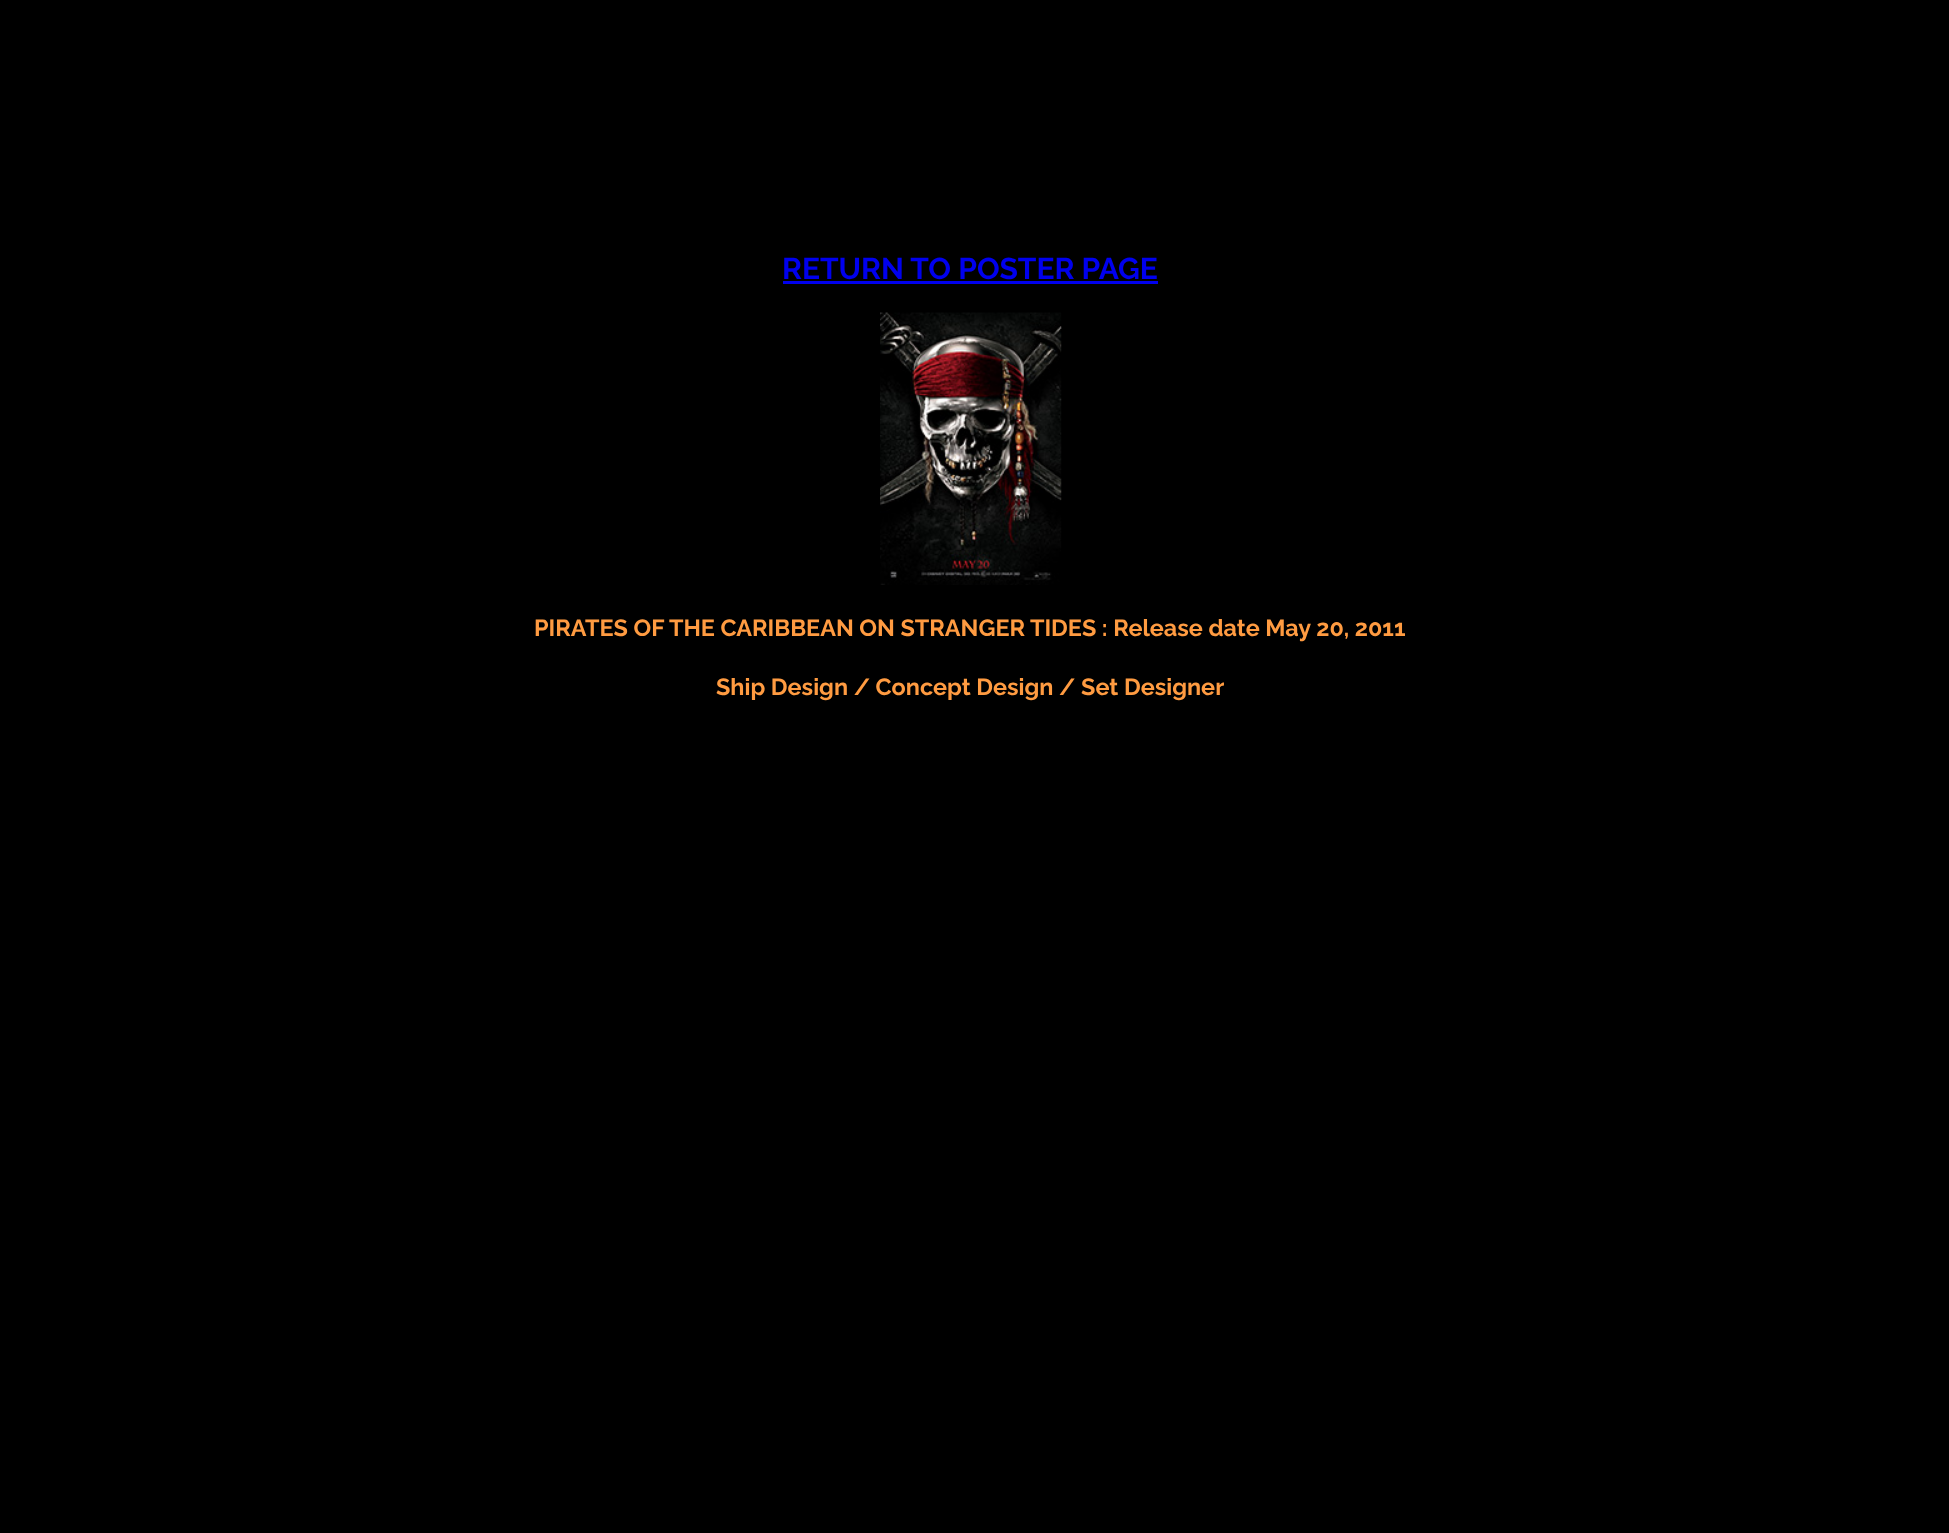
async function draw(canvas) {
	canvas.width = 1949;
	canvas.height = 1533;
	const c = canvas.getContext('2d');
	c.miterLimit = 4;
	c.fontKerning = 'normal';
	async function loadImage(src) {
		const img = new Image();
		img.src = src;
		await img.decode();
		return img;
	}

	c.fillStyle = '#000';
	c.fillRect(0, 0, 1949, 1533);
	c.font = 'bold 30px Raleway';
	c.fillStyle = '#00e';
	c.fillText('RETURN TO POSTER PAGE', 782, 279);
	c.fillRect(783, 281, 375, 3);
	c.drawImage(await loadImage('img1.png'), 880, 312, 182, 273);
	c.font = 'bold 23.4px Raleway';
	c.fillStyle = '#ff9b41';
	c.fillText('PIRATES OF THE CARIBBEAN ON STRANGER TIDES : Release date May 20, 2011', 534, 636);
	c.fillText('Ship Design / Concept Design / Set Designer', 716, 695);
}

draw(document.querySelector('canvas'));
